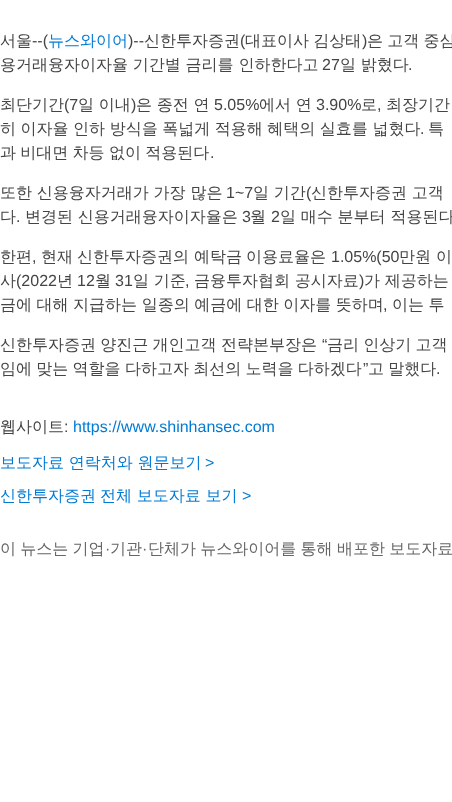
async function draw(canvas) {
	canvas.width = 452;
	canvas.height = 802;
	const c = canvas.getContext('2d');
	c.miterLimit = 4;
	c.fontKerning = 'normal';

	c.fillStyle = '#fff';
	c.fillRect(0, 0, 452, 802);
	c.font = '500 16px WenQuanYi Zen Hei';
	c.fillStyle = '#444';
	c.fillText('서울', 0, 46);
	c.font = '16px Liberation Sans';
	c.fillText('--(', 32, 46);
	c.font = '500 16px WenQuanYi Zen Hei';
	c.fillStyle = '#007bd4';
	c.fillText('뉴스와이어', 48, 46);
	c.font = '16px Liberation Sans';
	c.fillStyle = '#444';
	c.fillText(')--', 128, 46);
	c.font = '500 16px WenQuanYi Zen Hei';
	c.fillText('신한투자증권', 144, 46);
	c.font = '16px Liberation Sans';
	c.fillText('(', 240, 46);
	c.wordSpacing = '-0.5px';
	c.font = '500 16px WenQuanYi Zen Hei';
	c.fillText('대표이사 김상태', 245, 46);
	c.wordSpacing = '0px';
	c.font = '16px Liberation Sans';
	c.fillText(')', 362, 46);
	c.wordSpacing = '-0.5px';
	c.font = '500 16px WenQuanYi Zen Hei';
	c.fillText('은 고객 중심', 367, 46);
	c.wordSpacing = '0px';
	c.fillText('용거래융자이자율 기간별 금리를 인하한다고', 0, 70);
	c.font = '16px Liberation Sans';
	c.fillText('27', 322, 70);
	c.font = '500 16px WenQuanYi Zen Hei';
	c.fillText('일 밝혔다', 340, 70);
	c.font = '16px Liberation Sans';
	c.fillText('.', 408, 70);
	c.font = '500 16px WenQuanYi Zen Hei';
	c.fillText('최단기간', 0, 110);
	c.font = '16px Liberation Sans';
	c.fillText('(7', 64, 110);
	c.font = '500 16px WenQuanYi Zen Hei';
	c.fillText('일 이내', 78, 110);
	c.font = '16px Liberation Sans';
	c.fillText(')', 131, 110);
	c.font = '500 16px WenQuanYi Zen Hei';
	c.fillText('은 종전 연', 136, 110);
	c.font = '16px Liberation Sans';
	c.fillText('5.05%', 214, 110);
	c.font = '500 16px WenQuanYi Zen Hei';
	c.fillText('에서 연', 259, 110);
	c.font = '16px Liberation Sans';
	c.fillText('3.90%', 316, 110);
	c.font = '500 16px WenQuanYi Zen Hei';
	c.fillText('로', 361, 110);
	c.font = '16px Liberation Sans';
	c.fillText(',', 377, 110);
	c.font = '500 16px WenQuanYi Zen Hei';
	c.fillText('최장기간', 386, 110);
	c.wordSpacing = '-0.25px';
	c.fillText('히 이자율 인하 방식을 폭넓게 적용해 혜택의 실효를 넓혔다', 0, 134);
	c.wordSpacing = '0px';
	c.font = '16px Liberation Sans';
	c.fillText('.', 420, 134);
	c.wordSpacing = '-0.25px';
	c.font = '500 16px WenQuanYi Zen Hei';
	c.fillText('특', 428, 134);
	c.wordSpacing = '-0.5px';
	c.fillText('과 비대면 차등 없이 적용된다', 0, 158);
	c.wordSpacing = '0px';
	c.font = '16px Liberation Sans';
	c.fillText('.', 210, 158);
	c.font = '500 16px WenQuanYi Zen Hei';
	c.fillText('또한 신용융자거래가 가장 많은', 0, 198);
	c.font = '16px Liberation Sans';
	c.fillText('1~7', 226, 198);
	c.font = '500 16px WenQuanYi Zen Hei';
	c.fillText('일 기간', 253, 198);
	c.font = '16px Liberation Sans';
	c.fillText('(', 306, 198);
	c.font = '500 16px WenQuanYi Zen Hei';
	c.fillText('신한투자증권 고객', 311, 198);
	c.fillText('다', 0, 222);
	c.font = '16px Liberation Sans';
	c.fillText('.', 16, 222);
	c.font = '500 16px WenQuanYi Zen Hei';
	c.fillText('변경된 신용거래융자이자율은', 25, 222);
	c.font = '16px Liberation Sans';
	c.fillText('3', 242, 222);
	c.font = '500 16px WenQuanYi Zen Hei';
	c.fillText('월', 250, 222);
	c.font = '16px Liberation Sans';
	c.fillText('2', 271, 222);
	c.font = '500 16px WenQuanYi Zen Hei';
	c.fillText('일 매수 분부터 적용된다', 280, 222);
	c.fillText('한편', 0, 262);
	c.font = '16px Liberation Sans';
	c.fillText(',', 32, 262);
	c.font = '500 16px WenQuanYi Zen Hei';
	for (const [text, x, y] of [
		['현재', 41, 262],
		['신한투자증권의', 77, 262],
		['예탁금', 194, 262],
		['이용료율은', 246, 262],
	]) {
		c.fillText(text, x, y);
	}
	c.font = '16px Liberation Sans';
	c.fillText('1.05%(50', 331, 262);
	c.font = '500 16px WenQuanYi Zen Hei';
	for (const [text, x, y] of [
		['만원', 399, 262],
		['이', 436, 262],
		['사', 0, 286],
	]) {
		c.fillText(text, x, y);
	}
	c.font = '16px Liberation Sans';
	c.fillText('(2022', 16, 286);
	c.font = '500 16px WenQuanYi Zen Hei';
	c.fillText('년', 57, 286);
	c.font = '16px Liberation Sans';
	c.fillText('12', 77, 286);
	c.font = '500 16px WenQuanYi Zen Hei';
	c.fillText('월', 95, 286);
	c.font = '16px Liberation Sans';
	c.fillText('31', 115, 286);
	c.font = '500 16px WenQuanYi Zen Hei';
	c.fillText('일 기준', 133, 286);
	c.font = '16px Liberation Sans';
	c.fillText(',', 185, 286);
	c.font = '500 16px WenQuanYi Zen Hei';
	c.fillText('금융투자협회 공시자료', 194, 286);
	c.font = '16px Liberation Sans';
	c.fillText(')', 359, 286);
	c.font = '500 16px WenQuanYi Zen Hei';
	c.fillText('가 제공하는', 364, 286);
	c.wordSpacing = '-0.25px';
	c.fillText('금에 대해 지급하는 일종의 예금에 대한 이자를 뜻하며', 0, 310);
	c.wordSpacing = '0px';
	c.font = '16px Liberation Sans';
	c.fillText(',', 383, 310);
	c.wordSpacing = '-0.25px';
	c.font = '500 16px WenQuanYi Zen Hei';
	c.fillText('이는 투', 392, 310);
	c.wordSpacing = '-0.5px';
	c.fillText('신한투자증권 양진근 개인고객 전략본부장은', 0, 350);
	c.wordSpacing = '0px';
	c.font = '16px Liberation Sans';
	c.fillText('“', 322, 350);
	c.wordSpacing = '-0.5px';
	c.font = '500 16px WenQuanYi Zen Hei';
	c.fillText('금리 인상기 고객', 327, 350);
	c.fillText('임에 맞는 역할을 다하고자 최선의 노력을 다하겠다', 0, 374);
	c.wordSpacing = '0px';
	c.font = '16px Liberation Sans';
	c.fillText('”', 363, 374);
	c.wordSpacing = '-0.5px';
	c.font = '500 16px WenQuanYi Zen Hei';
	c.fillText('고 말했다', 368, 374);
	c.wordSpacing = '0px';
	c.font = '16px Liberation Sans';
	c.fillText('.', 436, 374);
	c.font = '500 16px WenQuanYi Zen Hei';
	c.fillText('웹사이트', 0, 432);
	c.font = '16px Liberation Sans';
	c.fillText(':', 64, 432);
	c.fillStyle = '#007bd4';
	c.fillText('https://www.shinhansec.com', 73, 432);
	c.font = '500 16px WenQuanYi Zen Hei';
	c.fillText('보도자료 연락처와 원문보기', 0, 468);
	c.font = '16px Liberation Sans';
	c.fillText('>', 205, 468);
	c.font = '500 16px WenQuanYi Zen Hei';
	c.fillText('신한투자증권', 0, 501);
	c.fillText('전체 보도자료 보기', 100, 501);
	c.font = '16px Liberation Sans';
	c.fillText('>', 242, 501);
	c.wordSpacing = '-0.5px';
	c.font = '500 16px WenQuanYi Zen Hei';
	c.fillStyle = '#666';
	c.fillText('이 뉴스는 기업', 0, 554);
	c.wordSpacing = '0px';
	c.font = '16px Liberation Sans';
	c.fillText('·', 105, 554);
	c.font = '500 16px WenQuanYi Zen Hei';
	c.fillText('기관', 110, 554);
	c.font = '16px Liberation Sans';
	c.fillText('·', 142, 554);
	c.wordSpacing = '-0.5px';
	c.font = '500 16px WenQuanYi Zen Hei';
	c.fillText('단체가 뉴스와이어를 통해 배포한 보도자료', 148, 554);
}

draw(document.querySelector('canvas'));
